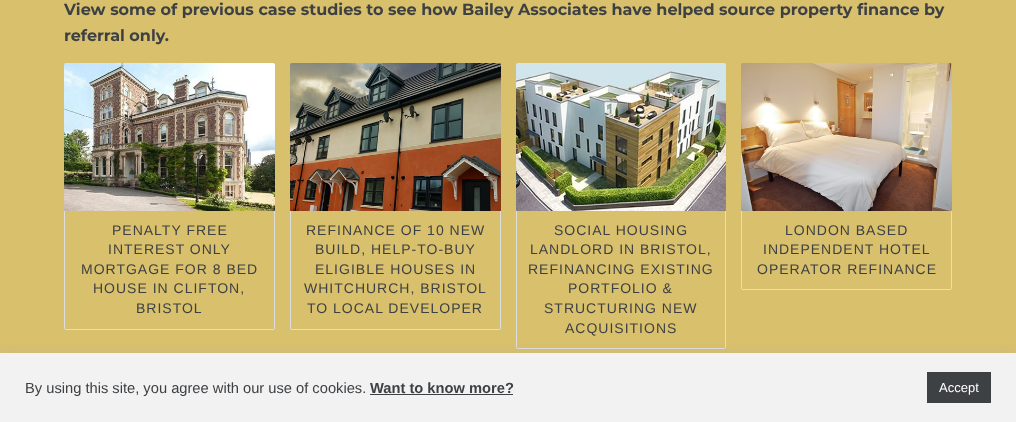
async function draw(canvas) {
	canvas.width = 1016;
	canvas.height = 422;
	const c = canvas.getContext('2d');
	c.miterLimit = 4;
	c.fontKerning = 'normal';
	async function loadImage(src) {
		const img = new Image();
		img.src = src;
		await img.decode();
		return img;
	}

	c.fillStyle = '#d9c06c';
	c.fillRect(0, 0, 1016, 422);
	c.font = 'bold 16px Montserrat';
	c.fillStyle = '#3e4144';
	c.fillText('View some of previous case studies to see how Bailey Associates have helped source property finance by', 64, 15);
	c.fillText('referral only.', 64, 41);
	c.drawImage(await loadImage('img1.png'), 64, 63, 211, 148);
	for (const [x, y, w, h, color] of [
		[274, 211, 1, 118, '#ddd'],
		[65, 329, 209, 1, '#ddd'],
		[64, 211, 1, 118, '#ddd'],
	]) {
		c.fillStyle = color;
		c.fillRect(x, y, w, h);
	}
	c.letterSpacing = '1px';
	c.font = '14px Liberation Sans';
	c.fillStyle = '#3e4144';
	for (const [text, x, y] of [
		['PENALTY FREE', 112, 235],
		['INTEREST ONLY', 108, 254],
		['MORTGAGE FOR 8 BED', 81, 274],
		['HOUSE IN CLIFTON,', 93, 293],
		['BRISTOL', 136, 313],
	]) {
		c.fillText(text, x, y);
	}
	c.drawImage(await loadImage('img2.png'), 290, 63, 211, 148);
	for (const [x, y, w, h, color] of [
		[500, 211, 1, 118, '#ddd'],
		[291, 329, 209, 1, '#ddd'],
		[290, 211, 1, 118, '#ddd'],
	]) {
		c.fillStyle = color;
		c.fillRect(x, y, w, h);
	}
	c.fillStyle = '#3e4144';
	for (const [text, x, y] of [
		['REFINANCE OF 10 NEW', 306, 235],
		['BUILD, HELP-TO-BUY', 315, 254],
		['ELIGIBLE HOUSES IN', 315, 274],
		['WHITCHURCH, BRISTOL', 304, 293],
		['TO LOCAL DEVELOPER', 307, 313],
	]) {
		c.fillText(text, x, y);
	}
	c.drawImage(await loadImage('img3.png'), 516, 63, 210, 148);
	for (const [x, y, w, h, color] of [
		[725, 211, 1, 137, '#ddd'],
		[517, 348, 208, 1, '#ddd'],
		[516, 211, 1, 137, '#ddd'],
	]) {
		c.fillStyle = color;
		c.fillRect(x, y, w, h);
	}
	c.fillStyle = '#3e4144';
	for (const [text, x, y] of [
		['SOCIAL HOUSING', 554, 235],
		['LANDLORD IN BRISTOL,', 530, 254],
		['REFINANCING EXISTING', 528, 274],
		['PORTFOLIO &', 568, 293],
		['STRUCTURING NEW', 544, 313],
		['ACQUISITIONS', 565, 333],
	]) {
		c.fillText(text, x, y);
	}
	c.drawImage(await loadImage('img4.png'), 741, 63, 211, 148);
	for (const [x, y, w, h, color] of [
		[951, 211, 1, 78, '#ddd'],
		[742, 289, 209, 1, '#ddd'],
		[741, 211, 1, 78, '#ddd'],
	]) {
		c.fillStyle = color;
		c.fillRect(x, y, w, h);
	}
	c.fillStyle = '#3e4144';
	for (const [text, x, y] of [
		['LONDON BASED', 785, 235],
		['INDEPENDENT HOTEL', 763, 254],
		['OPERATOR REFINANCE', 757, 274],
	]) {
		c.fillText(text, x, y);
	}
	c.fillStyle = '#acabab4d';
	c.filter = 'blur(5px)';
	c.beginPath();
	c.rect(0, 352, 1016, 69);
	c.fill();
	c.filter = 'none';
	c.fillStyle = '#f2f2f2';
	c.fillRect(0, 353, 1016, 69);
	c.letterSpacing = '0px';
	c.font = '14.7px Liberation Sans';
	c.fillStyle = '#3e4144';
	c.fillText('By using this site, you agree with our use of cookies.', 25, 393);
	c.font = 'bold 14.7px Liberation Sans';
	c.fillText('Want to know more?', 370, 393);
	c.fillRect(370, 394, 143, 1);
	c.fillRect(927, 372, 64, 31);
	c.font = '13px Liberation Sans';
	c.fillStyle = '#fff';
	c.fillText('Accept', 939, 392);
}

draw(document.querySelector('canvas'));
